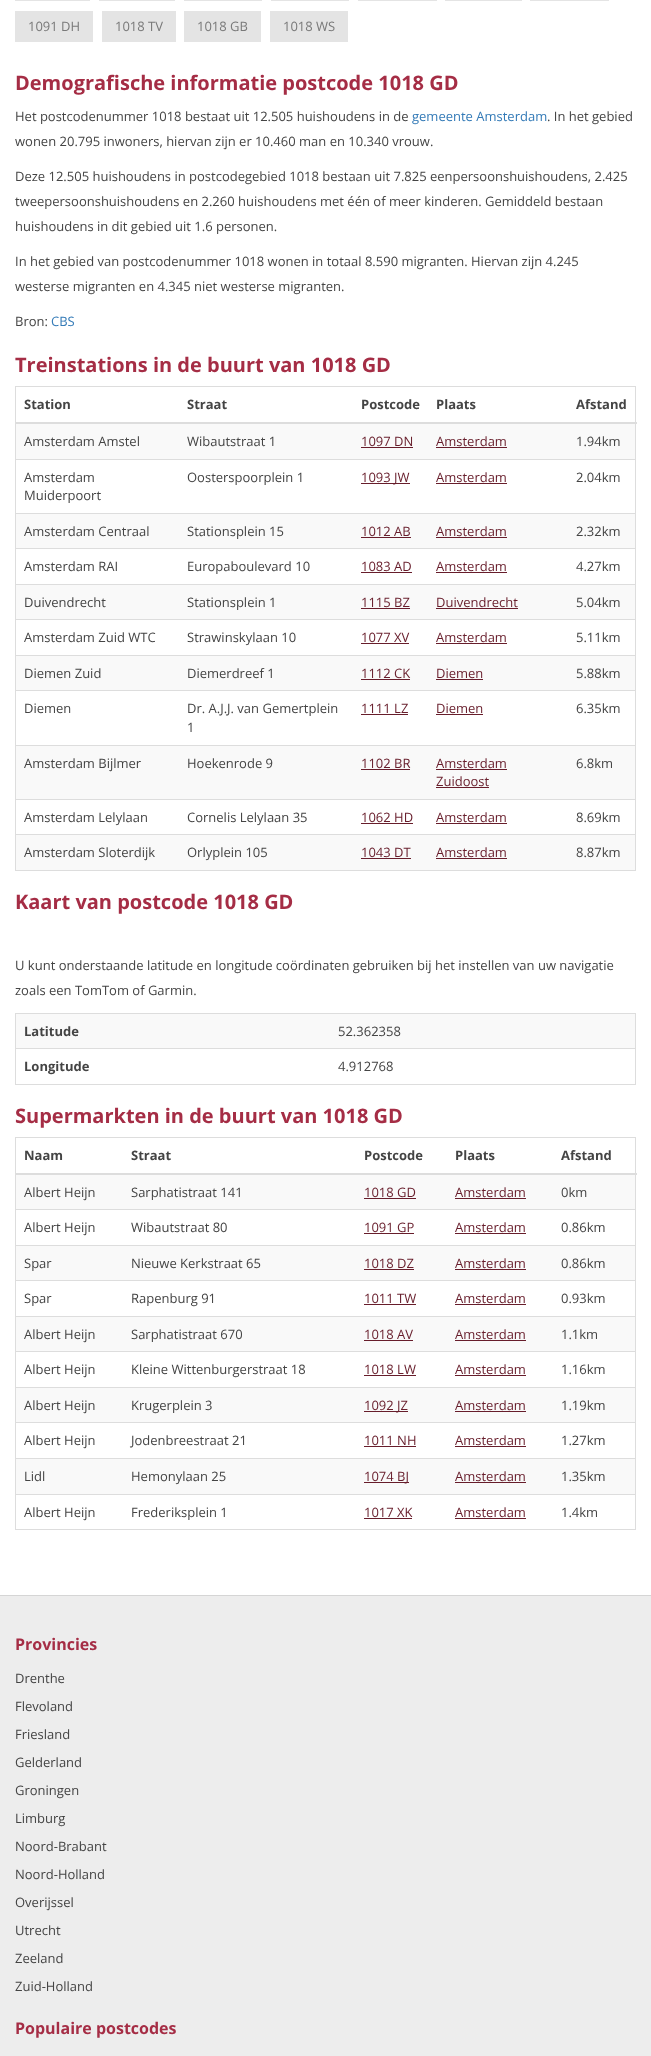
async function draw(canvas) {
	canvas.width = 651;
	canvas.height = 2056;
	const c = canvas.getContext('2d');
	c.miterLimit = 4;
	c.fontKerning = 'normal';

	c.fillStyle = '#fff';
	c.fillRect(0, 0, 651, 2056);
	for (const [x, y, w, h, color] of [
		[0, 1595, 651, 1, '#d5d5d5'],
		[15, 0, 75, 1, '#e4e4e4'],
		[99, 0, 76, 1, '#e4e4e4'],
		[184, 0, 78, 1, '#e4e4e4'],
		[271, 0, 78, 1, '#e4e4e4'],
		[358, 0, 79, 1, '#e4e4e4'],
		[445, 0, 77, 1, '#e4e4e4'],
		[530, 0, 79, 1, '#e4e4e4'],
		[15, 11, 78, 31, '#e4e4e4'],
	]) {
		c.fillStyle = color;
		c.fillRect(x, y, w, h);
	}
	c.font = '13px Open Sans';
	c.fillStyle = '#797979';
	c.fillText('1091 DH', 28, 31);
	c.fillStyle = '#e4e4e4';
	c.fillRect(102, 11, 74, 31);
	c.fillStyle = '#797979';
	c.fillText('1018 TV', 115, 31);
	c.fillStyle = '#e4e4e4';
	c.fillRect(184, 11, 77, 31);
	c.fillStyle = '#797979';
	c.fillText('1018 GB', 197, 31);
	c.fillStyle = '#e4e4e4';
	c.fillRect(270, 11, 78, 31);
	c.fillStyle = '#797979';
	c.fillText('1018 WS', 283, 31);
	c.font = 'bold 20px Open Sans';
	c.fillStyle = '#a52d45';
	c.fillText('Demografische informatie postcode 1018 GD', 15, 90);
	c.font = '13px Open Sans';
	c.fillStyle = '#444';
	c.fillText('Het postcodenummer 1018 bestaat uit 12.505 huishoudens in de', 15, 121);
	c.fillStyle = '#337ab7';
	c.fillText('gemeente Amsterdam', 412, 121);
	c.fillStyle = '#444';
	for (const [text, x, y] of [
		['. In het gebied', 547, 121],
		['wonen 20.795 inwoners, hiervan zijn er 10.460 man en 10.340 vrouw.', 15, 146],
		['Deze 12.505 huishoudens in postcodegebied 1018 bestaan uit 7.825 eenpersoonshuishoudens, 2.425', 15, 181],
		['tweepersoonshuishoudens en 2.260 huishoudens met één of meer kinderen. Gemiddeld bestaan', 15, 206],
		['huishoudens in dit gebied uit 1.6 personen.', 15, 231],
		['In het gebied van postcodenummer 1018 wonen in totaal 8.590 migranten. Hiervan zijn 4.245', 15, 266],
		['westerse migranten en 4.345 niet westerse migranten.', 15, 291],
		['Bron:', 15, 326],
	]) {
		c.fillText(text, x, y);
	}
	c.fillStyle = '#337ab7';
	c.fillText('CBS', 51, 326);
	c.font = 'bold 20px Open Sans';
	c.fillStyle = '#a52d45';
	c.fillText('Treinstations in de buurt van 1018 GD', 15, 372);
	for (const [x, y, w, h, color] of [
		[15, 386, 621, 1, '#ddd'],
		[635, 386, 1, 485, '#ddd'],
		[15, 870, 621, 1, '#ddd'],
		[15, 386, 1, 485, '#ddd'],
	]) {
		c.fillStyle = color;
		c.fillRect(x, y, w, h);
	}
	c.font = 'bold 13px Open Sans';
	c.fillStyle = '#444';
	for (const [text, x, y] of [
		['Station', 24, 409],
		['Straat', 187, 409],
		['Postcode', 361, 409],
		['Plaats', 436, 409],
	]) {
		c.fillText(text, x, y);
	}
	c.fillStyle = '#ddd';
	c.fillRect(15, 422, 622, 2);
	c.fillStyle = '#444';
	c.fillText('Afstand', 576, 409);
	c.fillStyle = '#f9f9f9';
	c.fillRect(16, 424, 619, 35);
	c.font = '13px Open Sans';
	c.fillStyle = '#444';
	c.fillText('Amsterdam Amstel', 24, 446);
	c.fillText('Wibautstraat 1', 187, 446);
	c.fillStyle = '#671d2b';
	c.fillText('1097 DN', 361, 446);
	c.fillRect(361, 447, 52, 1);
	c.fillText('Amsterdam', 436, 446);
	c.fillRect(436, 447, 71, 1);
	c.fillStyle = '#444';
	for (const [text, x, y] of [
		['1.94km', 576, 446],
		['Amsterdam', 24, 482],
		['Muiderpoort', 24, 500],
		['Oosterspoorplein 1', 187, 482],
	]) {
		c.fillText(text, x, y);
	}
	c.fillStyle = '#671d2b';
	c.fillRect(361, 483, 49, 1);
	c.fillText('1093 JW', 361, 482);
	c.fillText('Amsterdam', 436, 482);
	c.fillRect(436, 483, 71, 1);
	c.fillStyle = '#ddd';
	c.fillRect(15, 459, 621, 1);
	c.fillStyle = '#444';
	c.fillText('2.04km', 576, 482);
	c.fillStyle = '#f9f9f9';
	c.fillRect(16, 514, 619, 34);
	c.fillStyle = '#444';
	c.fillText('Amsterdam Centraal', 24, 536);
	c.fillText('Stationsplein 15', 187, 536);
	c.fillStyle = '#671d2b';
	c.fillText('1012 AB', 361, 536);
	c.fillRect(361, 537, 50, 1);
	c.fillText('Amsterdam', 436, 536);
	c.fillRect(436, 537, 71, 1);
	c.fillStyle = '#ddd';
	c.fillRect(15, 513, 621, 1);
	c.fillStyle = '#444';
	for (const [text, x, y] of [
		['2.32km', 576, 536],
		['Amsterdam RAI', 24, 571],
		['Europaboulevard 10', 187, 571],
	]) {
		c.fillText(text, x, y);
	}
	c.fillStyle = '#671d2b';
	c.fillText('1083 AD', 361, 571);
	c.fillRect(361, 572, 51, 1);
	c.fillText('Amsterdam', 436, 571);
	c.fillRect(436, 572, 71, 1);
	c.fillStyle = '#ddd';
	c.fillRect(15, 548, 621, 1);
	c.fillStyle = '#444';
	c.fillText('4.27km', 576, 571);
	c.fillStyle = '#f9f9f9';
	c.fillRect(16, 585, 619, 34);
	c.fillStyle = '#444';
	c.fillText('Duivendrecht', 24, 607);
	c.fillText('Stationsplein 1', 187, 607);
	c.fillStyle = '#671d2b';
	c.fillText('1115 BZ', 361, 607);
	c.fillRect(361, 608, 49, 1);
	c.fillText('Duivendrecht', 436, 607);
	c.fillRect(436, 608, 82, 1);
	c.fillStyle = '#ddd';
	c.fillRect(15, 584, 621, 1);
	c.fillStyle = '#444';
	for (const [text, x, y] of [
		['5.04km', 576, 607],
		['Amsterdam Zuid WTC', 24, 642],
		['Strawinskylaan 10', 187, 642],
	]) {
		c.fillText(text, x, y);
	}
	c.fillStyle = '#671d2b';
	c.fillText('1077 XV', 361, 642);
	c.fillRect(361, 643, 48, 1);
	c.fillText('Amsterdam', 436, 642);
	c.fillRect(436, 643, 71, 1);
	c.fillStyle = '#ddd';
	c.fillRect(15, 619, 621, 1);
	c.fillStyle = '#444';
	c.fillText('5.11km', 576, 642);
	c.fillStyle = '#f9f9f9';
	c.fillRect(16, 656, 619, 34);
	c.fillStyle = '#444';
	c.fillText('Diemen Zuid', 24, 678);
	c.fillText('Diemerdreef 1', 187, 678);
	c.fillStyle = '#671d2b';
	c.fillText('1112 CK', 361, 678);
	c.fillRect(361, 679, 49, 1);
	c.fillText('Diemen', 436, 678);
	c.fillRect(436, 679, 47, 1);
	c.fillStyle = '#ddd';
	c.fillRect(15, 655, 621, 1);
	c.fillStyle = '#444';
	for (const [text, x, y] of [
		['5.88km', 576, 678],
		['Diemen', 24, 713],
		['Dr. A.J.J. van Gemertplein', 187, 713],
		['1', 187, 732],
	]) {
		c.fillText(text, x, y);
	}
	c.fillStyle = '#671d2b';
	c.fillText('1111 LZ', 361, 713);
	c.fillRect(361, 714, 47, 1);
	c.fillText('Diemen', 436, 713);
	c.fillRect(436, 714, 47, 1);
	c.fillStyle = '#ddd';
	c.fillRect(15, 690, 621, 1);
	c.fillStyle = '#444';
	c.fillText('6.35km', 576, 713);
	c.fillStyle = '#f9f9f9';
	c.fillRect(16, 746, 619, 53);
	c.fillStyle = '#444';
	c.fillText('Amsterdam Bijlmer', 24, 768);
	c.fillText('Hoekenrode 9', 187, 768);
	c.fillStyle = '#671d2b';
	c.fillText('1102 BR', 361, 768);
	c.fillRect(361, 769, 49, 1);
	c.fillText('Amsterdam', 436, 768);
	c.fillRect(436, 769, 71, 1);
	c.fillText('Zuidoost', 436, 786);
	c.fillRect(436, 787, 53, 1);
	c.fillStyle = '#ddd';
	c.fillRect(15, 745, 621, 1);
	c.fillStyle = '#444';
	for (const [text, x, y] of [
		['6.8km', 576, 768],
		['Amsterdam Lelylaan', 24, 822],
		['Cornelis Lelylaan 35', 187, 822],
	]) {
		c.fillText(text, x, y);
	}
	c.fillStyle = '#671d2b';
	c.fillText('1062 HD', 361, 822);
	c.fillRect(361, 823, 52, 1);
	c.fillText('Amsterdam', 436, 822);
	c.fillRect(436, 823, 71, 1);
	c.fillStyle = '#ddd';
	c.fillRect(15, 799, 621, 1);
	c.fillStyle = '#444';
	c.fillText('8.69km', 576, 822);
	c.fillStyle = '#f9f9f9';
	c.fillRect(16, 835, 619, 35);
	c.fillStyle = '#444';
	c.fillText('Amsterdam Sloterdijk', 24, 857);
	c.fillText('Orlyplein 105', 187, 857);
	c.fillStyle = '#671d2b';
	c.fillText('1043 DT', 361, 857);
	c.fillRect(361, 858, 50, 1);
	c.fillText('Amsterdam', 436, 857);
	c.fillRect(436, 858, 71, 1);
	c.fillStyle = '#ddd';
	c.fillRect(15, 834, 621, 1);
	c.fillStyle = '#444';
	c.fillText('8.87km', 576, 857);
	c.font = 'bold 20px Open Sans';
	c.fillStyle = '#a52d45';
	c.fillText('Kaart van postcode 1018 GD', 15, 909);
	c.font = '13px Open Sans';
	c.fillStyle = '#444';
	c.fillText('U kunt onderstaande latitude en longitude coördinaten gebruiken bij het instellen van uw navigatie', 15, 970);
	c.fillText('zoals een TomTom of Garmin.', 15, 995);
	for (const [x, y, w, h, color] of [
		[15, 1013, 621, 1, '#ddd'],
		[635, 1013, 1, 72, '#ddd'],
		[15, 1084, 621, 1, '#ddd'],
		[15, 1013, 1, 72, '#ddd'],
		[16, 1014, 619, 34, '#f9f9f9'],
	]) {
		c.fillStyle = color;
		c.fillRect(x, y, w, h);
	}
	c.font = 'bold 13px Open Sans';
	c.fillStyle = '#444';
	c.fillText('Latitude', 24, 1036);
	c.font = '13px Open Sans';
	c.fillText('52.362358', 338, 1036);
	c.font = 'bold 13px Open Sans';
	c.fillText('Longitude', 24, 1071);
	c.fillStyle = '#ddd';
	c.fillRect(15, 1048, 621, 1);
	c.font = '13px Open Sans';
	c.fillStyle = '#444';
	c.fillText('4.912768', 338, 1071);
	c.font = 'bold 20px Open Sans';
	c.fillStyle = '#a52d45';
	c.fillText('Supermarkten in de buurt van 1018 GD', 15, 1123);
	for (const [x, y, w, h, color] of [
		[15, 1137, 621, 1, '#ddd'],
		[635, 1137, 1, 393, '#ddd'],
		[15, 1529, 621, 1, '#ddd'],
		[15, 1137, 1, 393, '#ddd'],
	]) {
		c.fillStyle = color;
		c.fillRect(x, y, w, h);
	}
	c.font = 'bold 13px Open Sans';
	c.fillStyle = '#444';
	for (const [text, x, y] of [
		['Naam', 24, 1160],
		['Straat', 131, 1160],
		['Postcode', 364, 1160],
		['Plaats', 455, 1160],
	]) {
		c.fillText(text, x, y);
	}
	c.fillStyle = '#ddd';
	c.fillRect(15, 1173, 622, 2);
	c.fillStyle = '#444';
	c.fillText('Afstand', 561, 1160);
	c.fillStyle = '#f9f9f9';
	c.fillRect(16, 1175, 619, 34);
	c.font = '13px Open Sans';
	c.fillStyle = '#444';
	c.fillText('Albert Heijn', 24, 1197);
	c.fillText('Sarphatistraat 141', 131, 1197);
	c.fillStyle = '#671d2b';
	c.fillText('1018 GD', 364, 1197);
	c.fillRect(364, 1198, 52, 1);
	c.fillText('Amsterdam', 455, 1197);
	c.fillRect(455, 1198, 71, 1);
	c.fillStyle = '#444';
	for (const [text, x, y] of [
		['0km', 561, 1197],
		['Albert Heijn', 24, 1232],
		['Wibautstraat 80', 131, 1232],
	]) {
		c.fillText(text, x, y);
	}
	c.fillStyle = '#671d2b';
	c.fillText('1091 GP', 364, 1232);
	c.fillRect(364, 1233, 50, 1);
	c.fillText('Amsterdam', 455, 1232);
	c.fillRect(455, 1233, 71, 1);
	c.fillStyle = '#ddd';
	c.fillRect(15, 1209, 621, 1);
	c.fillStyle = '#444';
	c.fillText('0.86km', 561, 1232);
	c.fillStyle = '#f9f9f9';
	c.fillRect(16, 1246, 619, 34);
	c.fillStyle = '#444';
	c.fillText('Spar', 24, 1268);
	c.fillText('Nieuwe Kerkstraat 65', 131, 1268);
	c.fillStyle = '#671d2b';
	c.fillText('1018 DZ', 364, 1268);
	c.fillRect(364, 1269, 50, 1);
	c.fillText('Amsterdam', 455, 1268);
	c.fillRect(455, 1269, 71, 1);
	c.fillStyle = '#ddd';
	c.fillRect(15, 1245, 621, 1);
	c.fillStyle = '#444';
	for (const [text, x, y] of [
		['0.86km', 561, 1268],
		['Spar', 24, 1303],
		['Rapenburg 91', 131, 1303],
	]) {
		c.fillText(text, x, y);
	}
	c.fillStyle = '#671d2b';
	c.fillText('1011 TW', 364, 1303);
	c.fillRect(364, 1304, 52, 1);
	c.fillText('Amsterdam', 455, 1303);
	c.fillRect(455, 1304, 71, 1);
	c.fillStyle = '#ddd';
	c.fillRect(15, 1280, 621, 1);
	c.fillStyle = '#444';
	c.fillText('0.93km', 561, 1303);
	c.fillStyle = '#f9f9f9';
	c.fillRect(16, 1317, 619, 34);
	c.fillStyle = '#444';
	c.fillText('Albert Heijn', 24, 1339);
	c.fillText('Sarphatistraat 670', 131, 1339);
	c.fillStyle = '#671d2b';
	c.fillText('1018 AV', 364, 1339);
	c.fillRect(364, 1340, 49, 1);
	c.fillText('Amsterdam', 455, 1339);
	c.fillRect(455, 1340, 71, 1);
	c.fillStyle = '#ddd';
	c.fillRect(15, 1316, 621, 1);
	c.fillStyle = '#444';
	for (const [text, x, y] of [
		['1.1km', 561, 1339],
		['Albert Heijn', 24, 1374],
		['Kleine Wittenburgerstraat 18', 131, 1374],
	]) {
		c.fillText(text, x, y);
	}
	c.fillStyle = '#671d2b';
	c.fillText('1018 LW', 364, 1374);
	c.fillRect(364, 1375, 52, 1);
	c.fillText('Amsterdam', 455, 1374);
	c.fillRect(455, 1375, 71, 1);
	c.fillStyle = '#ddd';
	c.fillRect(15, 1351, 621, 1);
	c.fillStyle = '#444';
	c.fillText('1.16km', 561, 1374);
	c.fillStyle = '#f9f9f9';
	c.fillRect(16, 1388, 619, 34);
	c.fillStyle = '#444';
	c.fillText('Albert Heijn', 24, 1410);
	c.fillText('Krugerplein 3', 131, 1410);
	c.fillStyle = '#671d2b';
	c.fillRect(364, 1411, 44, 1);
	c.fillText('1092 JZ', 364, 1410);
	c.fillText('Amsterdam', 455, 1410);
	c.fillRect(455, 1411, 71, 1);
	c.fillStyle = '#ddd';
	c.fillRect(15, 1387, 621, 1);
	c.fillStyle = '#444';
	for (const [text, x, y] of [
		['1.19km', 561, 1410],
		['Albert Heijn', 24, 1445],
		['Jodenbreestraat 21', 131, 1445],
	]) {
		c.fillText(text, x, y);
	}
	c.fillStyle = '#671d2b';
	c.fillText('1011 NH', 364, 1445);
	c.fillRect(364, 1446, 52, 1);
	c.fillText('Amsterdam', 455, 1445);
	c.fillRect(455, 1446, 71, 1);
	c.fillStyle = '#ddd';
	c.fillRect(15, 1422, 621, 1);
	c.fillStyle = '#444';
	c.fillText('1.27km', 561, 1445);
	c.fillStyle = '#f9f9f9';
	c.fillRect(16, 1459, 619, 35);
	c.fillStyle = '#444';
	c.fillText('Lidl', 24, 1481);
	c.fillText('Hemonylaan 25', 131, 1481);
	c.fillStyle = '#671d2b';
	c.fillRect(364, 1482, 45, 1);
	c.fillText('1074 BJ', 364, 1481);
	c.fillText('Amsterdam', 455, 1481);
	c.fillRect(455, 1482, 71, 1);
	c.fillStyle = '#ddd';
	c.fillRect(15, 1458, 621, 1);
	c.fillStyle = '#444';
	for (const [text, x, y] of [
		['1.35km', 561, 1481],
		['Albert Heijn', 24, 1517],
		['Frederiksplein 1', 131, 1517],
	]) {
		c.fillText(text, x, y);
	}
	c.fillStyle = '#671d2b';
	c.fillText('1017 XK', 364, 1517);
	c.fillRect(364, 1518, 48, 1);
	c.fillText('Amsterdam', 455, 1517);
	c.fillRect(455, 1518, 71, 1);
	c.fillStyle = '#ddd';
	c.fillRect(15, 1494, 621, 1);
	c.fillStyle = '#444';
	c.fillText('1.4km', 561, 1517);
	c.fillStyle = '#ededed';
	c.fillRect(0, 1596, 651, 460);
	c.font = 'bold 16px Open Sans';
	c.fillStyle = '#a52d45';
	c.fillText('Provincies', 15, 1650);
	c.font = '13px Open Sans';
	c.fillStyle = '#444';
	for (const [text, x, y] of [
		['Drenthe', 15, 1683],
		['Flevoland', 15, 1711],
		['Friesland', 15, 1739],
		['Gelderland', 15, 1767],
		['Groningen', 15, 1795],
		['Limburg', 15, 1823],
		['Noord-Brabant', 15, 1851],
		['Noord-Holland', 15, 1879],
		['Overijssel', 15, 1907],
		['Utrecht', 15, 1935],
		['Zeeland', 15, 1963],
		['Zuid-Holland', 15, 1991],
	]) {
		c.fillText(text, x, y);
	}
	c.font = 'bold 16px Open Sans';
	c.fillStyle = '#a52d45';
	c.fillText('Populaire postcodes', 15, 2034);
}

draw(document.querySelector('canvas'));
